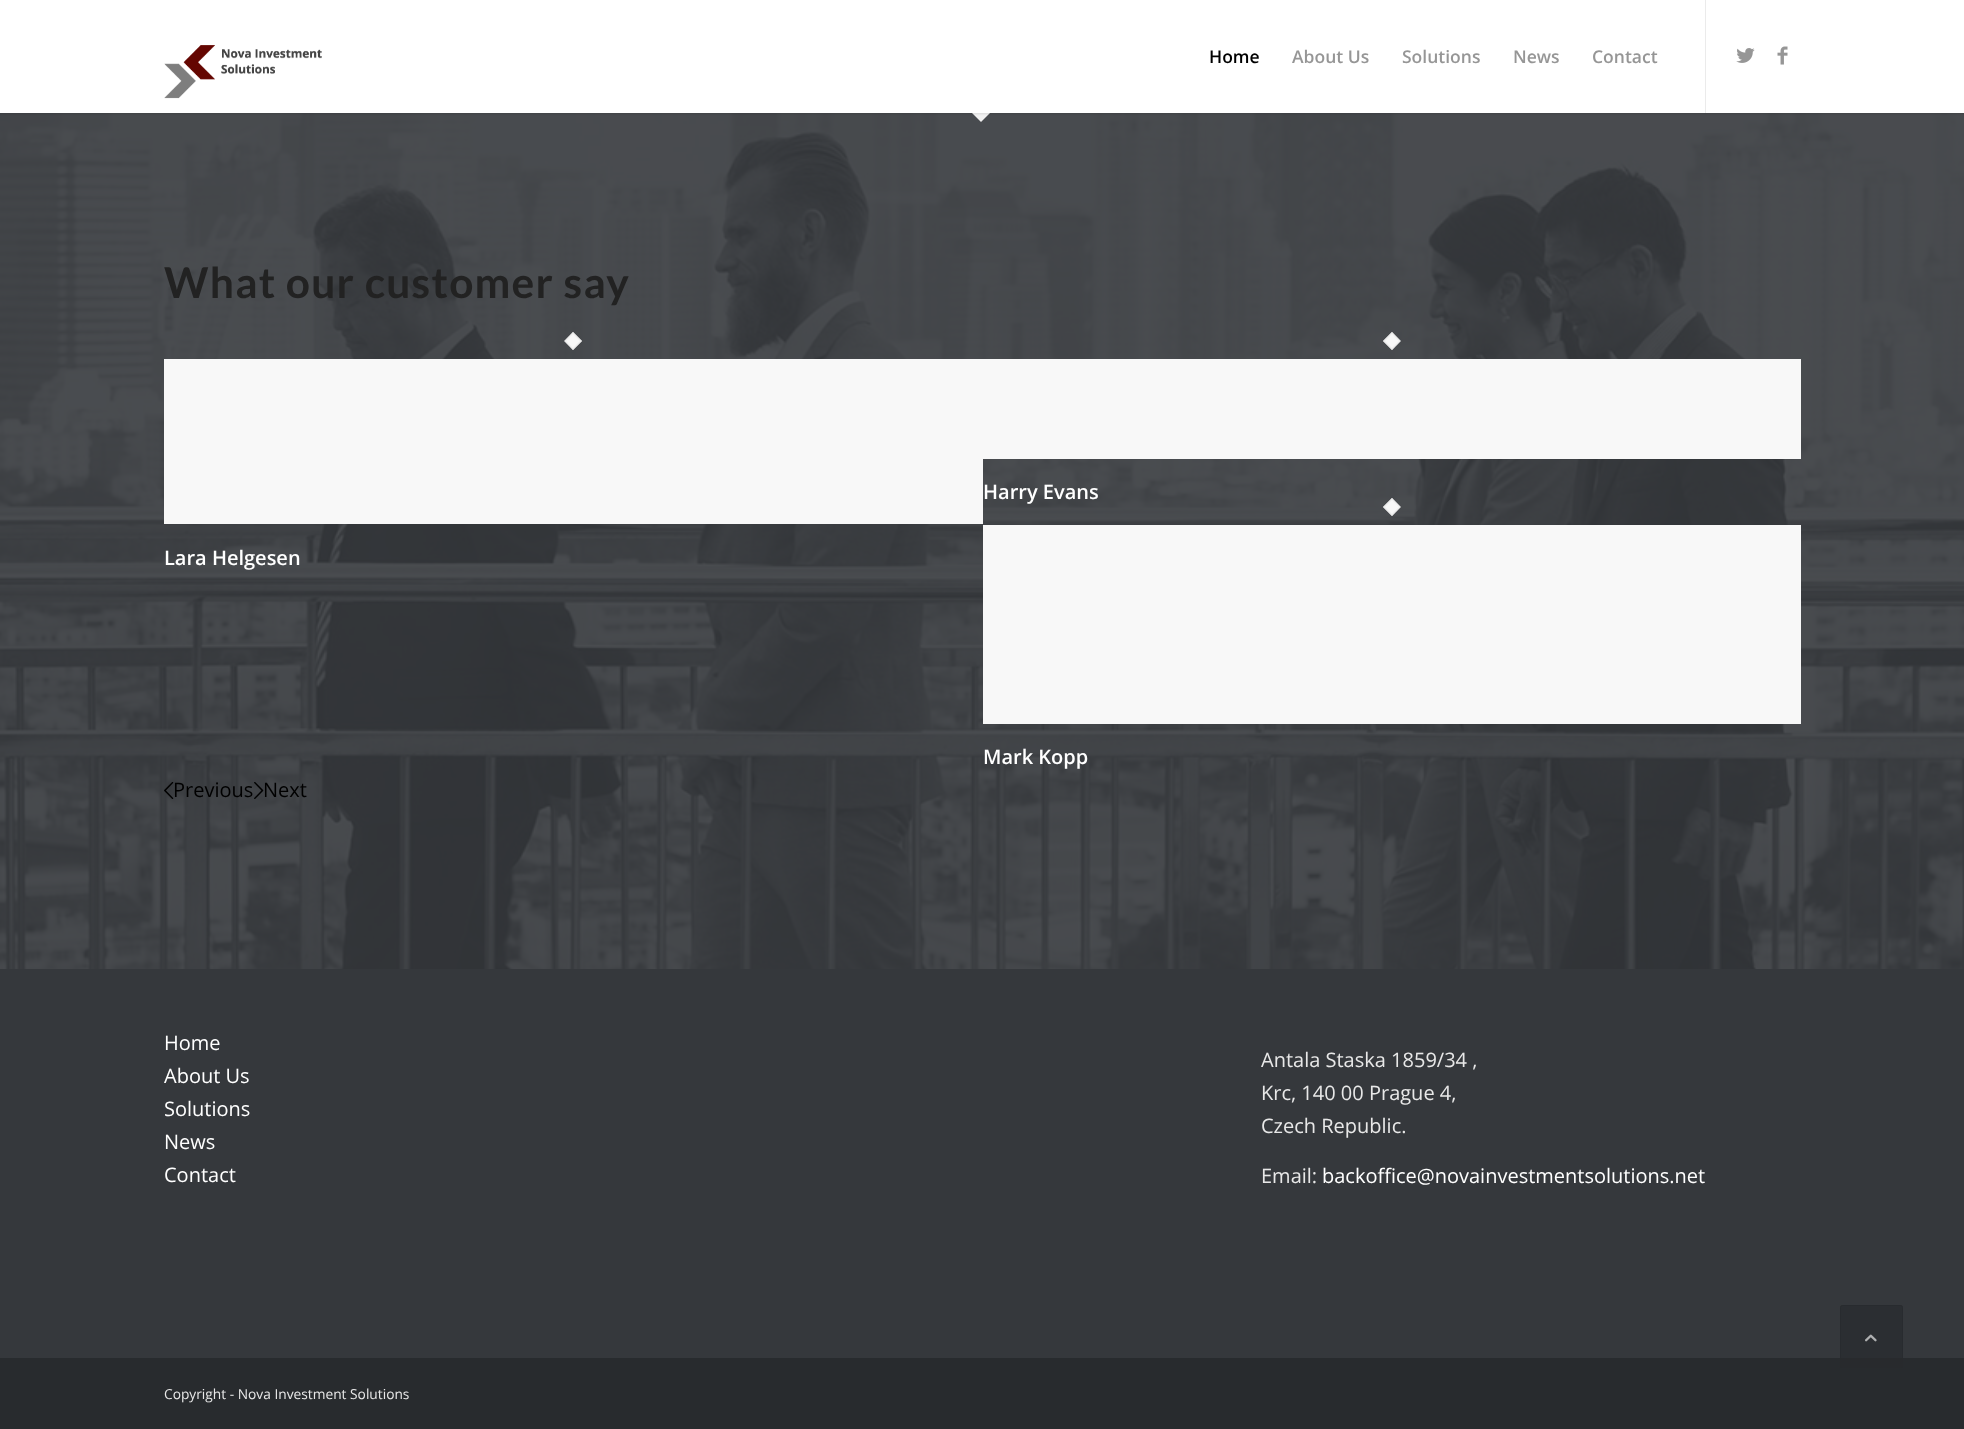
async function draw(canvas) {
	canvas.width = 1964;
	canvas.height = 1429;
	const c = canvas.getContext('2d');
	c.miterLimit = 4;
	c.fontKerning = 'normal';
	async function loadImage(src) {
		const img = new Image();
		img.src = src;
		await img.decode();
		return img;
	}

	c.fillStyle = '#fff';
	c.fillRect(0, 0, 1964, 1429);
	c.drawImage(await loadImage('img4.png'), 0, 113, 1964, 856);
	c.fillStyle = '#f1f1f1';
	c.beginPath();
	c.moveTo(981, 34);
	c.lineTo(1025, 78);
	c.lineTo(981, 122);
	c.lineTo(937, 78);
	c.closePath();
	c.fill();
	c.fillStyle = '#0000001a';
	c.filter = 'blur(1px)';
	c.beginPath();
	c.rect(-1, -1, 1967, 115);
	c.fill();
	c.filter = 'none';
	c.fillStyle = '#fff';
	c.fillRect(0, 0, 1964, 113);
	c.drawImage(await loadImage('img1.png'), 164, 45, 158, 54);
	c.fillStyle = '#ebebeb';
	c.fillRect(1705, 0, 1, 113);
	c.font = '600 17.5px Open Sans';
	c.fillStyle = '#000';
	c.fillText('Home', 1209, 63);
	c.fillStyle = '#969696';
	for (const [text, x, y] of [
		['About Us', 1292, 63],
		['Solutions', 1402, 63],
		['News', 1513, 63],
		['Contact', 1592, 63],
	]) {
		c.fillText(text, x, y);
	}
	c.drawImage(await loadImage('img2.png'), 1736, 48, 19, 15);
	c.drawImage(await loadImage('img3.png'), 1777, 46, 11, 19);
	c.letterSpacing = '1.25px';
	c.font = 'bold 42.5px Lato';
	c.fillStyle = '#222';
	c.fillText('What our customer say', 164, 298);
	c.fillStyle = '#f8f8f8';
	c.fillRect(983, 359, 818, 100);
	c.beginPath();
	c.moveTo(1392, 332);
	c.lineTo(1400.5, 341);
	c.lineTo(1392, 350);
	c.lineTo(1383, 341);
	c.closePath();
	c.fill();
	c.beginPath();
	c.moveTo(1392, 333);
	c.lineTo(1400, 341);
	c.lineTo(1392, 349);
	c.lineTo(1384, 341);
	c.closePath();
	c.strokeStyle = '#ebebeb';
	c.lineWidth = 1.3;
	c.stroke();
	c.letterSpacing = '0px';
	c.font = '600 20px Open Sans';
	c.fillStyle = '#fff';
	c.fillText('Harry Evans', 983, 499);
	c.fillStyle = '#f8f8f8';
	c.fillRect(164, 359, 819, 165);
	c.beginPath();
	c.moveTo(573, 332);
	c.lineTo(582, 341);
	c.lineTo(573, 350);
	c.lineTo(564.5, 341);
	c.closePath();
	c.fill();
	c.beginPath();
	c.moveTo(573, 333);
	c.lineTo(581, 341);
	c.lineTo(573, 349);
	c.lineTo(565, 341);
	c.closePath();
	c.stroke();
	c.fillStyle = '#fff';
	c.fillText('Lara Helgesen', 164, 565);
	c.fillStyle = '#f8f8f8';
	c.fillRect(983, 525, 818, 199);
	c.beginPath();
	c.moveTo(1392, 498);
	c.lineTo(1400.5, 507);
	c.lineTo(1392, 516);
	c.lineTo(1383, 507);
	c.closePath();
	c.fill();
	c.beginPath();
	c.moveTo(1392, 499);
	c.lineTo(1400, 507);
	c.lineTo(1392, 515);
	c.lineTo(1384, 507);
	c.closePath();
	c.stroke();
	c.fillStyle = '#fff';
	c.fillText('Mark Kopp', 983, 764);
	c.drawImage(await loadImage('img5.png'), 164, 782, 10, 17);
	c.font = '20px Open Sans';
	c.fillStyle = '#000';
	c.fillText('Previous', 173, 797);
	c.drawImage(await loadImage('img6.png'), 254, 782, 10, 17);
	c.fillText('Next', 263, 797);
	c.fillStyle = '#35383c';
	c.fillRect(0, 969, 1964, 389);
	c.fillStyle = '#fff';
	for (const [text, x, y] of [
		['Home', 164, 1050],
		['About Us', 164, 1083],
		['Solutions', 164, 1116],
		['News', 164, 1149],
		['Contact', 164, 1182],
	]) {
		c.fillText(text, x, y);
	}
	c.fillStyle = '#e8e8e8';
	for (const [text, x, y] of [
		['Antala Staska 1859/34 ,', 1261, 1067],
		['Krc, 140 00 Prague 4,', 1261, 1100],
		['Czech Republic.', 1261, 1133],
		['Email:', 1261, 1183],
	]) {
		c.fillText(text, x, y);
	}
	c.fillStyle = '#fff';
	c.fillText('backoffice@novainvestmentsolutions.net', 1322, 1183);
	c.fillStyle = '#282b2e';
	c.fillRect(0, 1358, 1964, 71);
	c.font = '13.75px Open Sans';
	c.fillStyle = '#e8e8e8';
	c.fillText('Copyright - Nova Investment Solutions', 164, 1399);
	c.fillStyle = '#282b2eb3';
	c.beginPath();
	c.roundRect(1840, 1305, 63, 63, 2.5);
	c.fill();
	c.beginPath();
	c.roundRect(1840.5, 1305.5, 62, 62, 2);
	c.strokeStyle = '#282b2eb3';
	c.lineWidth = 1;
	c.stroke();
	c.drawImage(await loadImage('img7.png'), 1865, 1334, 12, 8);
}

draw(document.querySelector('canvas'));
